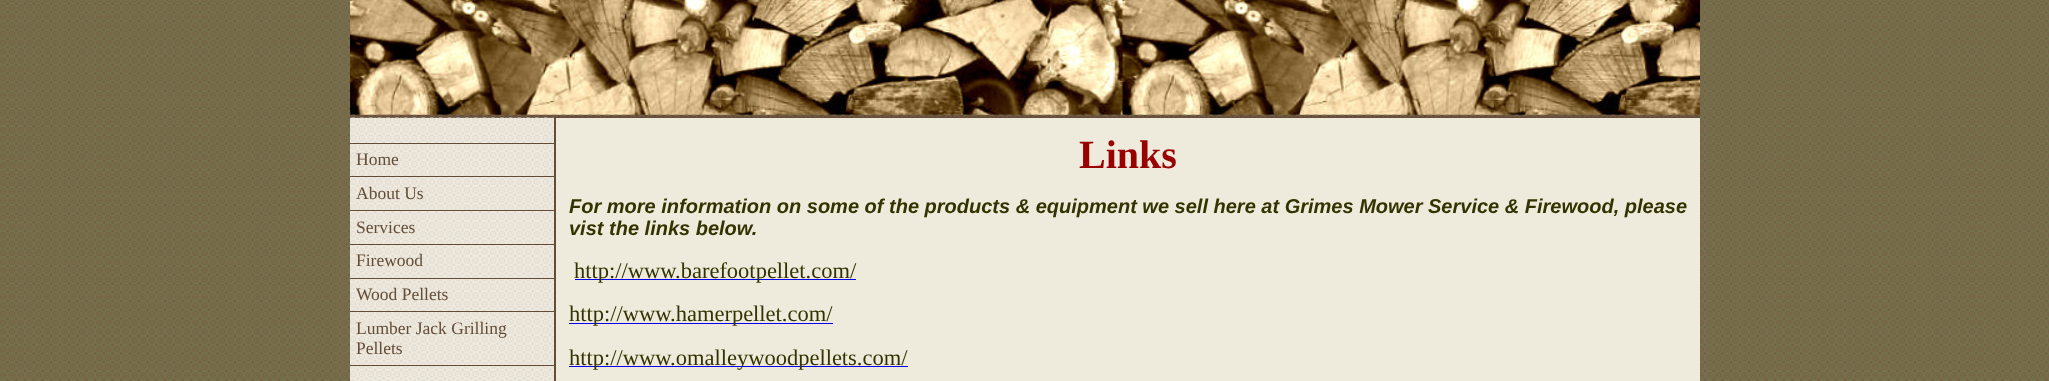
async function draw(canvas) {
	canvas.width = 2049;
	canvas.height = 381;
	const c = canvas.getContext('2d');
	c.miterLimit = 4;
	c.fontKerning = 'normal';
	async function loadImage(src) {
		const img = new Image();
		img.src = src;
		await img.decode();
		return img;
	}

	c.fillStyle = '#74724b';
	c.fillRect(0, 0, 2049, 381);
	c.drawImage(await loadImage('img1.png'), 0, 0, 2049, 381);
	c.drawImage(await loadImage('img2.png'), 350, 0, 1350, 115);
	c.fillStyle = '#644d38';
	c.fillRect(350, 115, 1350, 3);
	c.drawImage(await loadImage('img3.png'), 350, 114, 1350, 4);
	c.fillStyle = '#eeeadc';
	c.fillRect(350, 118, 204, 263);
	c.drawImage(await loadImage('img4.png'), 350, 117, 204, 264);
	c.fillStyle = '#644d38';
	c.fillRect(350, 143, 204, 1);
	c.font = '17.5px Liberation Serif';
	c.fillText('Home', 356, 165);
	c.fillRect(350, 176, 204, 1);
	c.fillText('About Us', 356, 199);
	c.fillRect(350, 210, 204, 1);
	c.fillText('Services', 356, 233);
	c.fillRect(350, 244, 204, 1);
	c.fillText('Firewood', 356, 266);
	c.fillRect(350, 278, 204, 1);
	c.fillText('Wood Pellets', 356, 300);
	c.fillRect(350, 311, 204, 1);
	c.fillText('Lumber Jack Grilling', 356, 334);
	c.fillText('Pellets', 356, 354);
	for (const [x, y, w, h, color] of [
		[350, 365, 204, 1, '#644d38'],
		[554, 118, 2, 263, '#644d38'],
		[556, 118, 1144, 263, '#eeeadc'],
	]) {
		c.fillStyle = color;
		c.fillRect(x, y, w, h);
	}
	c.font = 'bold 40px Liberation Serif';
	c.fillStyle = '#900';
	c.fillText('Links', 1079, 168);
	c.font = 'italic bold 20px Liberation Sans';
	c.fillStyle = '#330';
	c.fillText('For more information on some of the products & equipment we sell here at Grimes Mower Service & Firewood, please', 569, 213);
	c.fillText('vist the links below.', 569, 235);
	c.fillStyle = '#00e';
	c.fillRect(575, 279, 281, 1);
	c.font = '22.5px Liberation Serif';
	c.fillStyle = '#330';
	c.fillText('http://www.barefootpellet.com/', 574, 278);
	c.fillStyle = '#00e';
	c.fillRect(569, 323, 264, 1);
	c.fillStyle = '#330';
	c.fillText('http://www.hamerpellet.com/', 569, 321);
	c.fillStyle = '#00e';
	c.fillRect(569, 366, 339, 1);
	c.fillStyle = '#330';
	c.fillText('http://www.omalleywoodpellets.com/', 569, 365);
}

draw(document.querySelector('canvas'));
